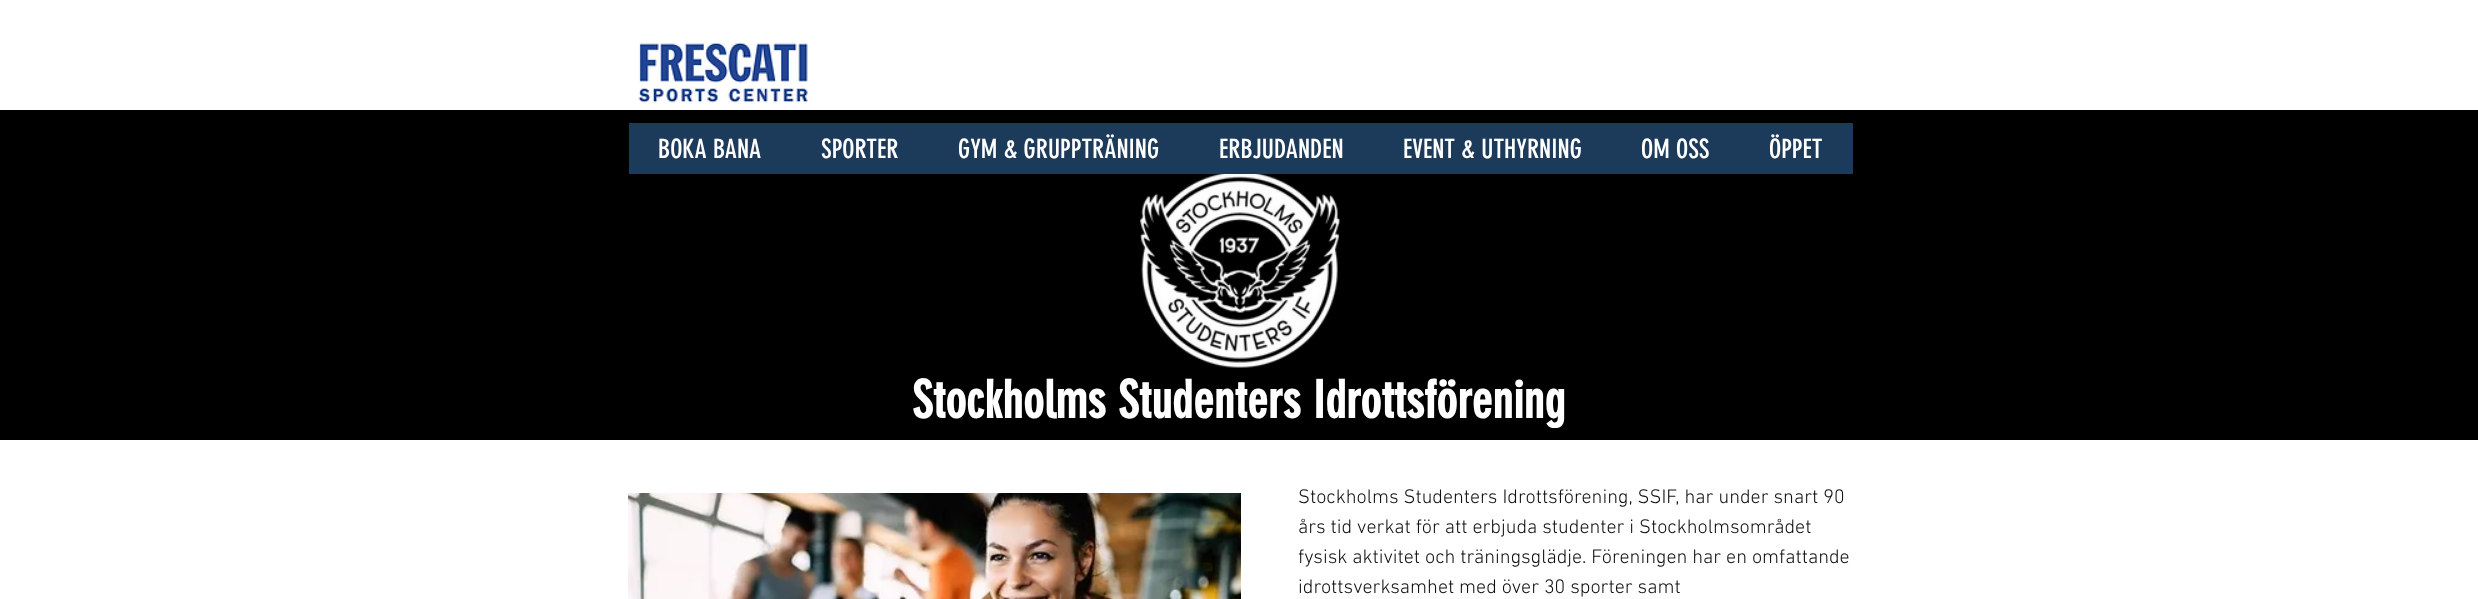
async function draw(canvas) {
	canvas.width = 2478;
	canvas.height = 599;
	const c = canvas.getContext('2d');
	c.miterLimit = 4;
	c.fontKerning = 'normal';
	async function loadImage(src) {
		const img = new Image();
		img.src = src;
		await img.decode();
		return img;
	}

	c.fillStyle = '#fff';
	c.fillRect(0, 0, 2478, 599);
	c.drawImage(await loadImage('img1.png'), 638, 42, 170, 61);
	c.fillStyle = '#000';
	c.fillRect(0, 110, 2478, 330);
	c.fillStyle = '#1c3a5a';
	c.fillRect(629, 123, 1224, 51);
	c.font = '26.25px "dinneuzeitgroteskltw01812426"';
	c.fillStyle = '#fff';
	for (const [text, x, y] of [
		['BOKA BANA', 658, 158],
		['SPORTER', 821, 158],
		['GYM & GRUPPTRÄNING', 958, 158],
		['ERBJUDANDEN', 1219, 158],
		['EVENT & UTHYRNING', 1403, 158],
		['OM OSS', 1641, 158],
		['ÖPPET', 1769, 158],
	]) {
		c.fillText(text, x, y);
	}
	c.drawImage(await loadImage('img2.png'), 1140, 174, 200, 194);
	c.font = 'bold 51.25px "dinneuzeitgroteskltw01812426"';
	c.fillText('Stockholms Studenters Idrottsförening', 912, 418);
	c.drawImage(await loadImage('img3.png'), 628, 493, 613, 106);
	c.font = '300 20px "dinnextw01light"';
	c.fillStyle = '#0f0f0f';
	for (const [text, x, y] of [
		['Stockholms Studenters Idrottsförening, SSIF, har under snart 90', 1298, 503],
		['års tid verkat för att erbjuda studenter i Stockholmsområdet', 1298, 533],
		['fysisk aktivitet och träningsglädje. Föreningen har en omfattande', 1298, 563],
		['idrottsverksamhet med över 30 sporter samt', 1298, 593],
	]) {
		c.fillText(text, x, y);
	}
}

draw(document.querySelector('canvas'));
